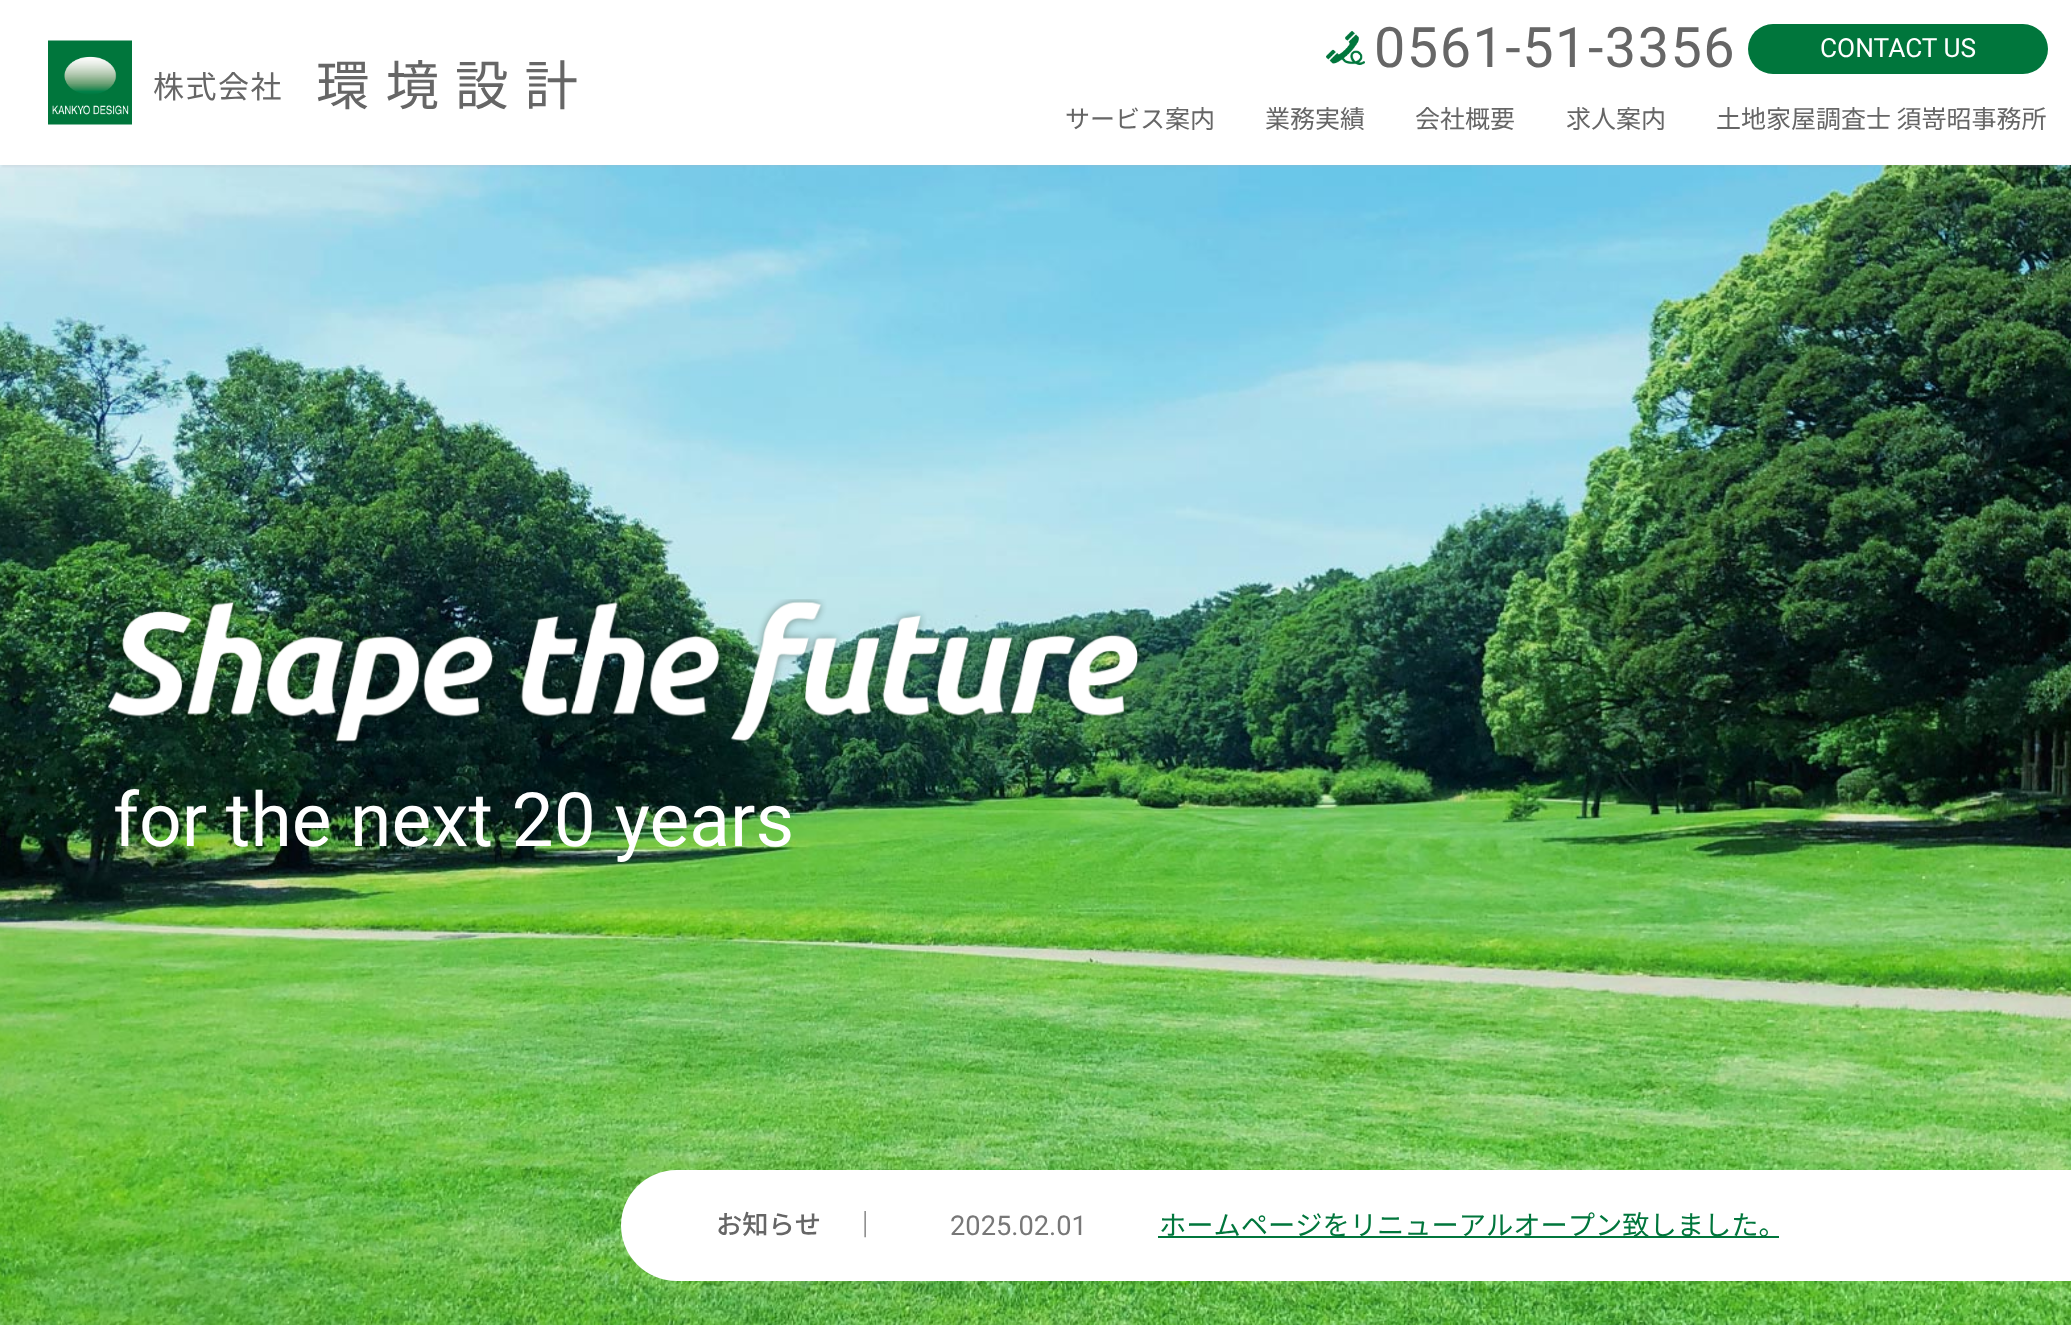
async function draw(canvas) {
	canvas.width = 2071;
	canvas.height = 1325;
	const c = canvas.getContext('2d');
	c.miterLimit = 4;
	c.fontKerning = 'normal';
	async function loadImage(src) {
		const img = new Image();
		img.src = src;
		await img.decode();
		return img;
	}

	c.fillStyle = '#fff';
	c.fillRect(0, 0, 2071, 1325);
	c.drawImage(await loadImage('img3.png'), 0, 165, 2071, 1160);
	c.save();
	c.beginPath();
	c.rect(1, 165, 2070, 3);
	c.clip();
	c.fillStyle = '#b1afba33';
	c.filter = 'blur(1px)';
	c.beginPath();
	c.rect(2, 5, 2068, 162);
	c.fill();
	c.filter = 'none';
	c.restore();
	c.drawImage(await loadImage('img1.png'), 48, 40, 84, 85);
	c.letterSpacing = '1.5px';
	c.font = '31px Noto Sans JP';
	c.fillStyle = '#666';
	c.fillText('株式会社', 153, 98);
	c.letterSpacing = '16px';
	c.font = '53.5px Noto Sans JP';
	c.fillText('環境設計', 316, 105);
	c.drawImage(await loadImage('img2.png'), 1326, 31, 39, 34);
	c.letterSpacing = '1.5px';
	c.font = '55.75px Roboto';
	c.fillText('0561-51-3356', 1374, 67);
	c.fillStyle = '#00763c';
	c.beginPath();
	c.roundRect(1748, 24, 300, 50, 25);
	c.fill();
	c.letterSpacing = '0px';
	c.font = '26.25px Roboto';
	c.fillStyle = '#fff';
	c.fillText('CONTACT US', 1820, 57);
	c.font = '25px Noto Sans JP';
	c.fillStyle = '#666';
	for (const [text, x, y] of [
		['サービス案内', 1065, 128],
		['業務実績', 1265, 128],
		['会社概要', 1415, 128],
		['求人案内', 1566, 128],
		['土地家屋調査士 須嵜昭事務所', 1716, 128],
	]) {
		c.fillText(text, x, y);
	}
	c.drawImage(await loadImage('img4.png'), 105, 599, 1037, 145);
	c.font = '75px Roboto';
	c.fillStyle = '#fff';
	c.fillText('for the next 20 years', 113, 846);
	c.beginPath();
	c.moveTo(676.5, 1170);
	c.lineTo(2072, 1170);
	c.lineTo(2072, 1281);
	c.lineTo(676.5, 1281);
	c.bezierCurveTo(646, 1281, 621, 1256, 621, 1225.5);
	c.bezierCurveTo(621, 1195, 646, 1170, 676.5, 1170);
	c.closePath();
	c.fill();
	c.font = '500 26.25px Noto Sans JP';
	c.fillStyle = '#666';
	c.fillText('お知らせ', 716, 1234);
	c.fillText('｜', 852, 1234);
	c.font = '27.25px Roboto';
	c.fillStyle = '#777';
	c.fillText('2025.02.01', 950, 1235);
	c.fillStyle = '#00763c';
	c.fillRect(1158, 1236, 621, 2);
	c.font = '27.25px Noto Sans JP';
	c.fillText('ホームページをリニューアルオープン致しました。', 1159, 1235);
}

draw(document.querySelector('canvas'));
